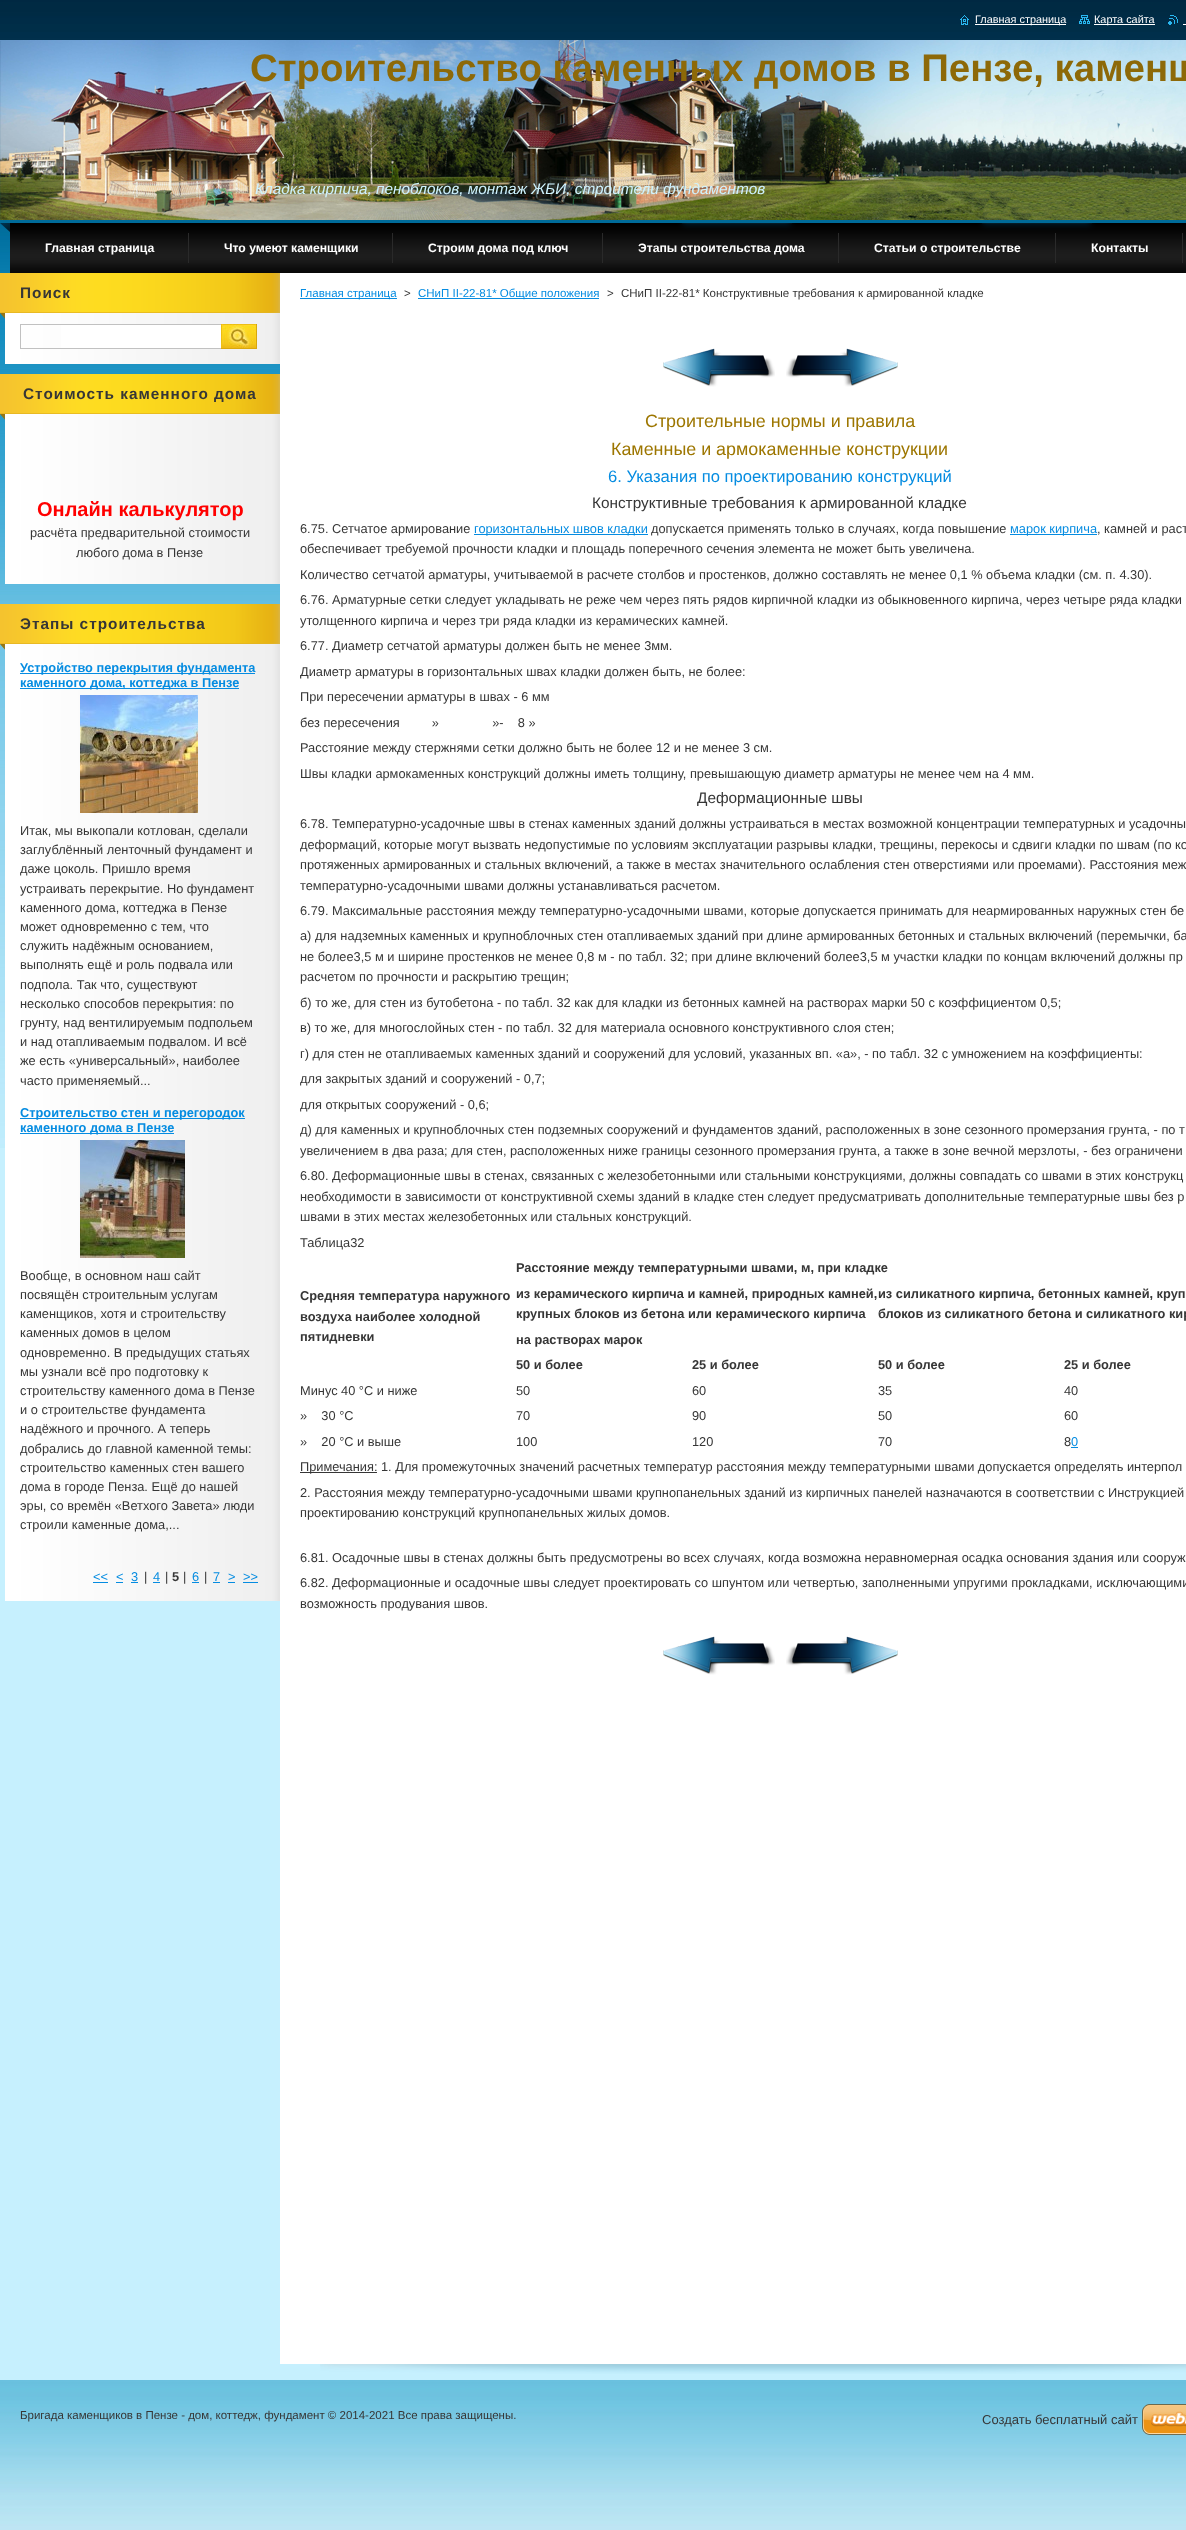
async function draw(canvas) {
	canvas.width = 1186;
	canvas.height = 2530;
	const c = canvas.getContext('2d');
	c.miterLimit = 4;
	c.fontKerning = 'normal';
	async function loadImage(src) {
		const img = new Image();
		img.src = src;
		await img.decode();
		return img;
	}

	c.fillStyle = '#c6f0fe';
	c.fillRect(0, 0, 1186, 2530);
	c.drawImage(await loadImage('img1.png'), 0, 0, 1186, 1148);
	c.drawImage(await loadImage('img2.png'), 960, 15, 9, 10);
	c.fillStyle = '#fff';
	c.fillRect(975, 24, 91, 1);
	c.font = '10.9px Liberation Sans';
	c.fillText('Главная страница', 975, 23);
	c.drawImage(await loadImage('img3.png'), 1079, 15, 11, 9);
	c.fillRect(1094, 24, 61, 1);
	c.fillText('Карта сайта', 1094, 23);
	c.drawImage(await loadImage('img4.png'), 1168, 15, 10, 10);
	c.fillRect(1183, 24, 3, 1);
	c.drawImage(await loadImage('img5.png'), 0, 40, 1186, 180);
	c.font = 'bold 38.4px Liberation Sans';
	c.fillStyle = '#8d6908';
	c.fillText('Строительство каменных домов в Пензе, каменщ', 250, 81);
	c.font = 'italic 15.35px Liberation Sans';
	c.fillStyle = '#cff3ff';
	c.fillText('Кладка кирпича, пеноблоков, монтаж ЖБИ, строители фундаментов', 255, 194);
	c.drawImage(await loadImage('img6.png'), 0, 223, 1186, 50);
	c.fillStyle = '#2a2a2a';
	c.fillRect(188, 233, 1, 30);
	c.font = 'bold 12.2px Liberation Sans';
	c.fillStyle = '#fff';
	c.fillText('Главная страница', 45, 252);
	c.fillStyle = '#2a2a2a';
	c.fillRect(392, 233, 1, 30);
	c.fillStyle = '#fff';
	c.fillText('Что умеют каменщики', 224, 252);
	c.fillStyle = '#2a2a2a';
	c.fillRect(602, 233, 1, 30);
	c.fillStyle = '#fff';
	c.fillText('Строим дома под ключ', 428, 252);
	c.fillStyle = '#2a2a2a';
	c.fillRect(838, 233, 1, 30);
	c.fillStyle = '#fff';
	c.fillText('Этапы строительства дома', 638, 252);
	c.fillStyle = '#2a2a2a';
	c.fillRect(1055, 233, 1, 30);
	c.fillStyle = '#fff';
	c.fillText('Статьи о строительстве', 874, 252);
	c.fillStyle = '#2a2a2a';
	c.fillRect(1182, 233, 1, 30);
	c.fillStyle = '#fff';
	c.fillText('Контакты', 1091, 252);
	c.drawImage(await loadImage('img7.png'), 5, 319, 275, 45);
	c.drawImage(await loadImage('img8.png'), 0, 273, 280, 46);
	c.letterSpacing = '1px';
	c.font = 'bold 15.35px Liberation Sans';
	c.fillStyle = '#363636';
	c.fillText('Поиск', 20, 298);
	c.fillStyle = '#fff';
	c.fillRect(61, 325, 160, 23);
	c.strokeStyle = '#c1c1c1';
	c.strokeRect(20.5, 324.5, 201, 24);
	c.drawImage(await loadImage('img9.png'), 221, 324, 36, 25);
	c.drawImage(await loadImage('img10.png'), 5, 420, 275, 164);
	c.drawImage(await loadImage('img11.png'), 0, 374, 280, 46);
	c.fillStyle = '#363636';
	c.fillText('Стоимость каменного дома', 23, 399);
	c.letterSpacing = '0px';
	c.font = 'bold 20px Liberation Sans';
	c.fillStyle = '#f00';
	c.fillText('Онлайн калькулятор', 37, 516);
	c.font = '12.8px Liberation Sans';
	c.fillStyle = '#363636';
	c.fillText('расчёта предварительной стоимости', 30, 537);
	c.fillText('любого дома в Пензе', 76, 557);
	c.drawImage(await loadImage('img12.png'), 5, 650, 275, 951);
	c.drawImage(await loadImage('img13.png'), 0, 604, 280, 46);
	c.letterSpacing = '1px';
	c.font = 'bold 15.35px Liberation Sans';
	c.fillText('Этапы строительства', 20, 629);
	c.fillStyle = '#058ce1';
	c.fillRect(20, 673, 235, 1);
	c.letterSpacing = '0px';
	c.font = 'bold 12.8px Liberation Sans';
	c.fillText('Устройство перекрытия фундамента', 20, 672);
	c.fillRect(20, 688, 219, 1);
	c.fillText('каменного дома, коттеджа в Пензе', 20, 687);
	c.drawImage(await loadImage('img14.png'), 80, 695, 118, 118);
	c.font = '12.8px Liberation Sans';
	c.fillStyle = '#363636';
	for (const [text, x, y] of [
		['Итак, мы выкопали котлован, сделали', 20, 835],
		['заглублённый ленточный фундамент и', 20, 854],
		['даже цоколь. Пришло время', 20, 873],
		['устраивать перекрытие. Но фундамент', 20, 893],
		['каменного дома, коттеджа в Пензе', 20, 912],
		['может одновременно с тем, что', 20, 931],
		['служить надёжным основанием,', 20, 950],
		['выполнять ещё и роль подвала или', 20, 969],
		['подпола. Так что, существуют', 20, 989],
		['несколько способов перекрытия: по', 20, 1008],
		['грунту, над вентилируемым подпольем', 20, 1027],
		['и над отапливаемым подвалом. И всё', 20, 1046],
		['же есть «универсальный», наиболее', 20, 1065],
		['часто применяемый...', 20, 1085],
	]) {
		c.fillText(text, x, y);
	}
	c.fillStyle = '#058ce1';
	c.fillRect(20, 1118, 225, 1);
	c.font = 'bold 12.8px Liberation Sans';
	c.fillText('Строительство стен и перегородок', 20, 1117);
	c.fillRect(20, 1133, 154, 1);
	c.fillText('каменного дома в Пензе', 20, 1132);
	c.drawImage(await loadImage('img15.png'), 80, 1140, 105, 118);
	c.font = '12.8px Liberation Sans';
	c.fillStyle = '#363636';
	for (const [text, x, y] of [
		['Вообще, в основном наш сайт', 20, 1280],
		['посвящён строительным услугам', 20, 1299],
		['каменщиков, хотя и строительству', 20, 1318],
		['каменных домов в целом', 20, 1337],
		['одновременно. В предыдущих статьях', 20, 1357],
		['мы узнали всё про подготовку к', 20, 1376],
		['строительству каменного дома в Пензе', 20, 1395],
		['и о строительстве фундамента', 20, 1414],
		['надёжного и прочного. А теперь', 20, 1433],
		['добрались до главной каменной темы:', 20, 1453],
		['строительство каменных стен вашего', 20, 1472],
		['дома в городе Пенза. Ещё до нашей', 20, 1491],
		['эры, со времён «Ветхого Завета» люди', 20, 1510],
		['строили каменные дома,...', 20, 1529],
	]) {
		c.fillText(text, x, y);
	}
	c.fillStyle = '#058ce1';
	c.fillText('<<', 93, 1581);
	c.fillRect(93, 1582, 15, 1);
	c.fillText('<', 116, 1581);
	c.fillRect(116, 1582, 7, 1);
	c.fillText('3', 131, 1581);
	c.fillRect(131, 1582, 7, 1);
	c.fillStyle = '#363636';
	c.fillText('|', 144, 1581);
	c.fillStyle = '#058ce1';
	c.fillText('4', 153, 1581);
	c.fillRect(153, 1582, 7, 1);
	c.fillStyle = '#363636';
	c.fillText('|', 165, 1581);
	c.font = 'bold 12.8px Liberation Sans';
	c.fillText('5', 172, 1581);
	c.font = '12.8px Liberation Sans';
	c.fillText('|', 183, 1581);
	c.fillStyle = '#058ce1';
	c.fillText('6', 192, 1581);
	c.fillRect(192, 1582, 7, 1);
	c.fillStyle = '#363636';
	c.fillText('|', 204, 1581);
	c.fillStyle = '#058ce1';
	c.fillText('7', 213, 1581);
	c.fillRect(213, 1582, 7, 1);
	c.fillText('>', 228, 1581);
	c.fillRect(228, 1582, 7, 1);
	c.fillText('>>', 243, 1581);
	c.fillRect(243, 1582, 15, 1);
	c.drawImage(await loadImage('img16.png'), 320, 2364, 866, 10);
	c.fillStyle = '#fff';
	c.fillRect(280, 273, 906, 2091);
	c.fillStyle = '#058ce1';
	c.fillRect(300, 298, 97, 1);
	c.font = '11.5px Liberation Sans';
	c.fillText('Главная страница', 300, 297);
	c.fillStyle = '#363636';
	c.fillText('>', 404, 297);
	c.fillStyle = '#058ce1';
	c.fillRect(418, 298, 181, 1);
	c.fillText('СНиП II-22-81* Общие положения', 418, 297);
	c.fillStyle = '#363636';
	c.fillText('>', 607, 297);
	c.fillText('СНиП II-22-81* Конструктивные требования к армированной кладке', 621, 297);
	c.drawImage(await loadImage('img17.png'), 663, 348, 112, 39);
	c.drawImage(await loadImage('img18.png'), 786, 348, 112, 39);
	c.font = '17.9px Liberation Sans';
	c.fillStyle = '#9d7600';
	c.fillText('Строительные нормы и правила', 645, 427);
	c.fillText('Каменные и армокаменные конструкции', 611, 455);
	c.font = '16.6px Liberation Sans';
	c.fillStyle = '#058ce1';
	c.fillText('6. Указания по проектированию конструкций', 608, 482);
	c.font = '15.35px Liberation Sans';
	c.fillStyle = '#363636';
	c.fillText('Конструктивные требования к армированной кладке', 592, 508);
	c.font = '12.8px Liberation Sans';
	c.fillText('6.75. Сетчатое армирование', 300, 533);
	c.fillStyle = '#058ce1';
	c.fillRect(474, 534, 174, 1);
	c.fillText('горизонтальных швов кладки', 474, 533);
	c.fillStyle = '#363636';
	c.fillText('допускается применять только в случаях, когда повышение', 651, 533);
	c.fillStyle = '#058ce1';
	c.fillRect(1010, 534, 87, 1);
	c.fillText('марок кирпича', 1010, 533);
	c.fillStyle = '#363636';
	for (const [text, x, y] of [
		[', камней и раст', 1097, 533],
		['обеспечивает требуемой прочности кладки и площадь поперечного сечения элемента не может быть увеличена.', 300, 553],
		['Количество сетчатой арматуры, учитываемой в расчете столбов и простенков, должно составлять не менее 0,1 % объема кладки (см. п. 4.30).', 300, 579],
		['6.76. Арматурные сетки следует укладывать не реже чем через пять рядов кирпичной кладки из обыкновенного кирпича, через четыре ряда кладки', 300, 604],
		['утолщенного кирпича и через три ряда кладки из керамических камней.', 300, 625],
		['6.77. Диаметр сетчатой арматуры должен быть не менее 3мм.', 300, 650],
		['Диаметр арматуры в горизонтальных швах кладки должен быть, не более:', 300, 676],
		['При пересечении арматуры в швах - 6 мм', 300, 701],
		['без пересечения         »               »-    8 »', 300, 727],
		['Расстояние между стержнями сетки должно быть не более 12 и не менее 3 см.', 300, 752],
		['Швы кладки армокаменных конструкций должны иметь толщину, превышающую диаметр арматуры не менее чем на 4 мм.', 300, 778],
	]) {
		c.fillText(text, x, y);
	}
	c.font = '15.35px Liberation Sans';
	c.fillText('Деформационные швы', 697, 803);
	c.font = '12.8px Liberation Sans';
	for (const [text, x, y] of [
		['6.78. Температурно-усадочные швы в стенах каменных зданий должны устраиваться в местах возможной концентрации температурных и усадочны', 300, 828],
		['деформаций, которые могут вызвать недопустимые по условиям эксплуатации разрывы кладки, трещины, перекосы и сдвиги кладки по швам (по ко', 300, 849],
		['протяженных армированных и стальных включений, а также в местах значительного ослабления стен отверстиями или проемами). Расстояния меж', 300, 869],
		['температурно-усадочными швами должны устанавливаться расчетом.', 300, 890],
		['6.79. Максимальные расстояния между температурно-усадочными швами, которые допускается принимать для неармированных наружных стен бе', 300, 915],
		['а) для надземных каменных и крупноблочных стен отапливаемых зданий при длине армированных бетонных и стальных включений (перемычки, ба', 300, 940],
		['не более3,5 м и ширине простенков не менее 0,8 м - по табл. 32; при длине включений более3,5 м участки кладки по концам включений должны пр', 300, 961],
		['расчетом по прочности и раскрытию трещин;', 300, 981],
		['б) то же, для стен из бутобетона - по табл. 32 как для кладки из бетонных камней на растворах марки 50 с коэффициентом 0,5;', 300, 1007],
		['в) то же, для многослойных стен - по табл. 32 для материала основного конструктивного слоя стен;', 300, 1032],
		['г) для стен не отапливаемых каменных зданий и сооружений для условий, указанных вп. «а», - по табл. 32 с умножением на коэффициенты:', 300, 1058],
		['для закрытых зданий и сооружений - 0,7;', 300, 1083],
		['для открытых сооружений - 0,6;', 300, 1109],
		['д) для каменных и крупноблочных стен подземных сооружений и фундаментов зданий, расположенных в зоне сезонного промерзания грунта, - по т', 300, 1134],
		['увеличением в два раза; для стен, расположенных ниже границы сезонного промерзания грунта, а также в зоне вечной мерзлоты, - без ограничени', 300, 1155],
		['6.80. Деформационные швы в стенах, связанных с железобетонными или стальными конструкциями, должны совпадать со швами в этих конструкц', 300, 1180],
		['необходимости в зависимости от конструктивной схемы зданий в кладке стен следует предусматривать дополнительные температурные швы без р', 300, 1201],
		['швами в этих местах железобетонных или стальных конструкций.', 300, 1221],
		['Таблица32', 300, 1247],
	]) {
		c.fillText(text, x, y);
	}
	c.font = 'bold 12.8px Liberation Sans';
	for (const [text, x, y] of [
		['Расстояние между температурными швами, м, при кладке', 516, 1272],
		['Средняя температура наружного', 300, 1300],
		['воздуха наиболее холодной', 300, 1321],
		['пятидневки', 300, 1341],
		['из керамического кирпича и камней, природных камней,', 516, 1298],
		['крупных блоков из бетона или керамического кирпича', 516, 1318],
		['из силикатного кирпича, бетонных камней, круп', 878, 1298],
		['блоков из силикатного бетона и силикатного кир', 878, 1318],
		['на растворах марок', 516, 1344],
		['50 и более', 516, 1369],
		['25 и более', 692, 1369],
		['50 и более', 878, 1369],
		['25 и более', 1064, 1369],
	]) {
		c.fillText(text, x, y);
	}
	c.font = '12.8px Liberation Sans';
	for (const [text, x, y] of [
		['Минус 40 °С и ниже', 300, 1395],
		['50', 516, 1395],
		['60', 692, 1395],
		['35', 878, 1395],
		['40', 1064, 1395],
		['»    30 °С', 300, 1420],
		['70', 516, 1420],
		['90', 692, 1420],
		['50', 878, 1420],
		['60', 1064, 1420],
		['»    20 °С и выше', 300, 1446],
		['100', 516, 1446],
		['120', 692, 1446],
		['70', 878, 1446],
		['8', 1064, 1446],
	]) {
		c.fillText(text, x, y);
	}
	c.fillStyle = '#058ce1';
	c.fillText('0', 1071, 1446);
	c.fillRect(1071, 1447, 7, 1);
	c.fillStyle = '#363636';
	c.fillRect(300, 1472, 77, 1);
	for (const [text, x, y] of [
		['Примечания: 1. Для промежуточных значений расчетных температур расстояния между температурными швами допускается определять интерпол', 300, 1471],
		['2. Расстояния между температурно-усадочными швами крупнопанельных зданий из кирпичных панелей назначаются в соответствии с Инструкцией', 300, 1497],
		['проектированию конструкций крупнопанельных жилых домов.', 300, 1517],
		['6.81. Осадочные швы в стенах должны быть предусмотрены во всех случаях, когда возможна неравномерная осадка основания здания или сооруж', 300, 1562],
		['6.82. Деформационные и осадочные швы следует проектировать со шпунтом или четвертью, заполненными упругими прокладками, исключающими', 300, 1587],
		['возможность продувания швов.', 300, 1608],
	]) {
		c.fillText(text, x, y);
	}
	c.drawImage(await loadImage('img17.png'), 663, 1636, 112, 39);
	c.drawImage(await loadImage('img18.png'), 786, 1636, 112, 39);
	c.drawImage(await loadImage('img19.png'), 0, 2380, 1186, 150);
	c.font = '11.5px Liberation Sans';
	c.fillText('Бригада каменщиков в Пензе - дом, коттедж, фундамент © 2014-2021 Все права защищены.', 20, 2419);
	c.font = '13px Liberation Sans';
	c.fillText('Создать бесплатный сайт', 982, 2424);
	c.drawImage(await loadImage('img20.png'), 1142, 2404, 44, 31);
}

draw(document.querySelector('canvas'));
